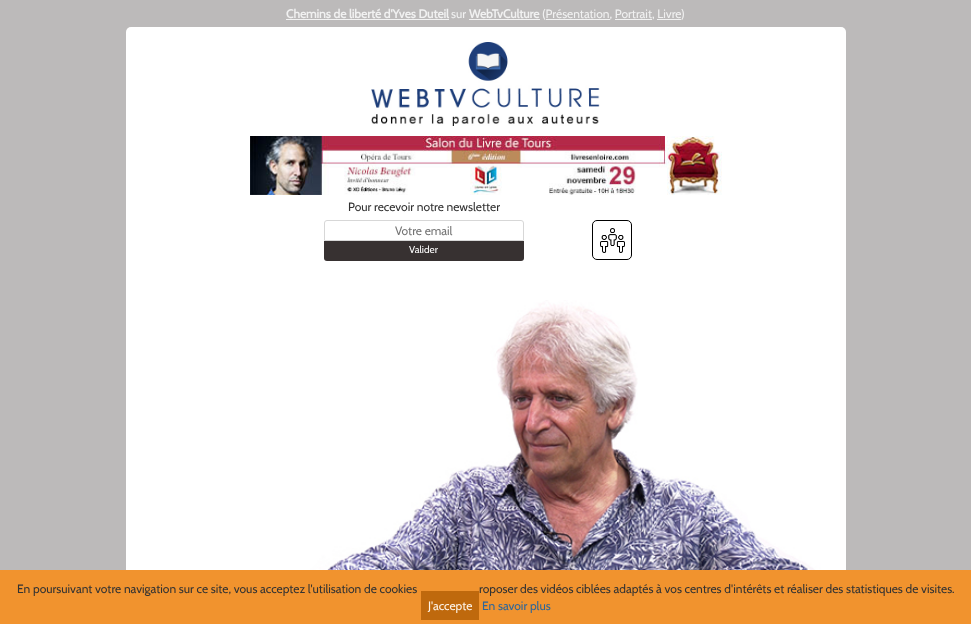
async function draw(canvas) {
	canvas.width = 971;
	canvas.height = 624;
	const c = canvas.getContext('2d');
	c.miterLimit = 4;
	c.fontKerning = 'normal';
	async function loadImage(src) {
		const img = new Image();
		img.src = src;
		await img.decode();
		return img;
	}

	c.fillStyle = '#bcbaba';
	c.fillRect(0, 0, 971, 624);
	c.font = 'bold 12px Cabin';
	c.fillStyle = '#f1f1f1';
	c.fillText('Chemins de liberté d\'Yves Duteil', 286, 18);
	c.fillRect(286, 19, 163, 1);
	c.font = '12px Cabin';
	c.fillText('sur', 451, 18);
	c.font = 'bold 12px Cabin';
	c.fillText('WebTvCulture', 469, 18);
	c.fillRect(469, 19, 71, 1);
	c.font = '12px Cabin';
	c.fillText('(Présentation, Portrait, Livre', 542, 18);
	c.fillText(')', 681, 18);
	for (const [x, y, w, h, color] of [
		[546, 19, 64, 1, '#f1f1f1'],
		[615, 19, 37, 1, '#f1f1f1'],
		[657, 19, 24, 1, '#f1f1f1'],
	]) {
		c.fillStyle = color;
		c.fillRect(x, y, w, h);
	}
	c.fillStyle = '#fff';
	c.beginPath();
	c.roundRect(126, 27, 720, 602, 5);
	c.fill();
	c.drawImage(await loadImage('img1.png'), 371, 42, 229, 84);
	c.drawImage(await loadImage('img2.png'), 250, 136, 472, 59);
	c.fillStyle = '#333';
	c.fillText('Pour recevoir notre newsletter', 348, 211);
	c.beginPath();
	c.roundRect(324.5, 220.5, 199, 20, [2.5, 2.5, 0, 0]);
	c.strokeStyle = '#d7d7d7';
	c.stroke();
	c.fillStyle = '#757575';
	c.fillText('Votre email', 395, 235);
	c.fillStyle = '#373131';
	c.beginPath();
	c.roundRect(324, 241, 200, 20, [0, 0, 3, 3]);
	c.fill();
	c.font = '10px Cabin';
	c.fillStyle = '#fff';
	c.fillText('Valider', 409, 253);
	c.beginPath();
	c.roundRect(592.5, 220.5, 39, 39, 4.5);
	c.strokeStyle = '#000';
	c.stroke();
	c.drawImage(await loadImage('img3.png'), 600, 228, 25, 25);
	c.drawImage(await loadImage('img4.png'), 305, 300, 533, 270);
	c.fillStyle = '#f1932e';
	c.fillRect(0, 570, 971, 54);
	c.font = '12px Cabin';
	c.fillStyle = '#333';
	c.fillText('En poursuivant votre navigation sur ce site, vous acceptez l\'utilisation de cookies', 17, 593);
	c.fillText('roposer des vidéos ciblées adaptés à vos centres d\'intérêts et réaliser des statistiques de visites.', 479, 593);
	c.fillStyle = '#bf690d';
	c.fillRect(421, 591, 58, 29);
	c.fillStyle = '#fdf3e7';
	c.fillText('J\'accepte', 428, 610);
	c.fillStyle = '#2d669a';
	c.fillText('En savoir plus', 482, 610);
}

draw(document.querySelector('canvas'));
